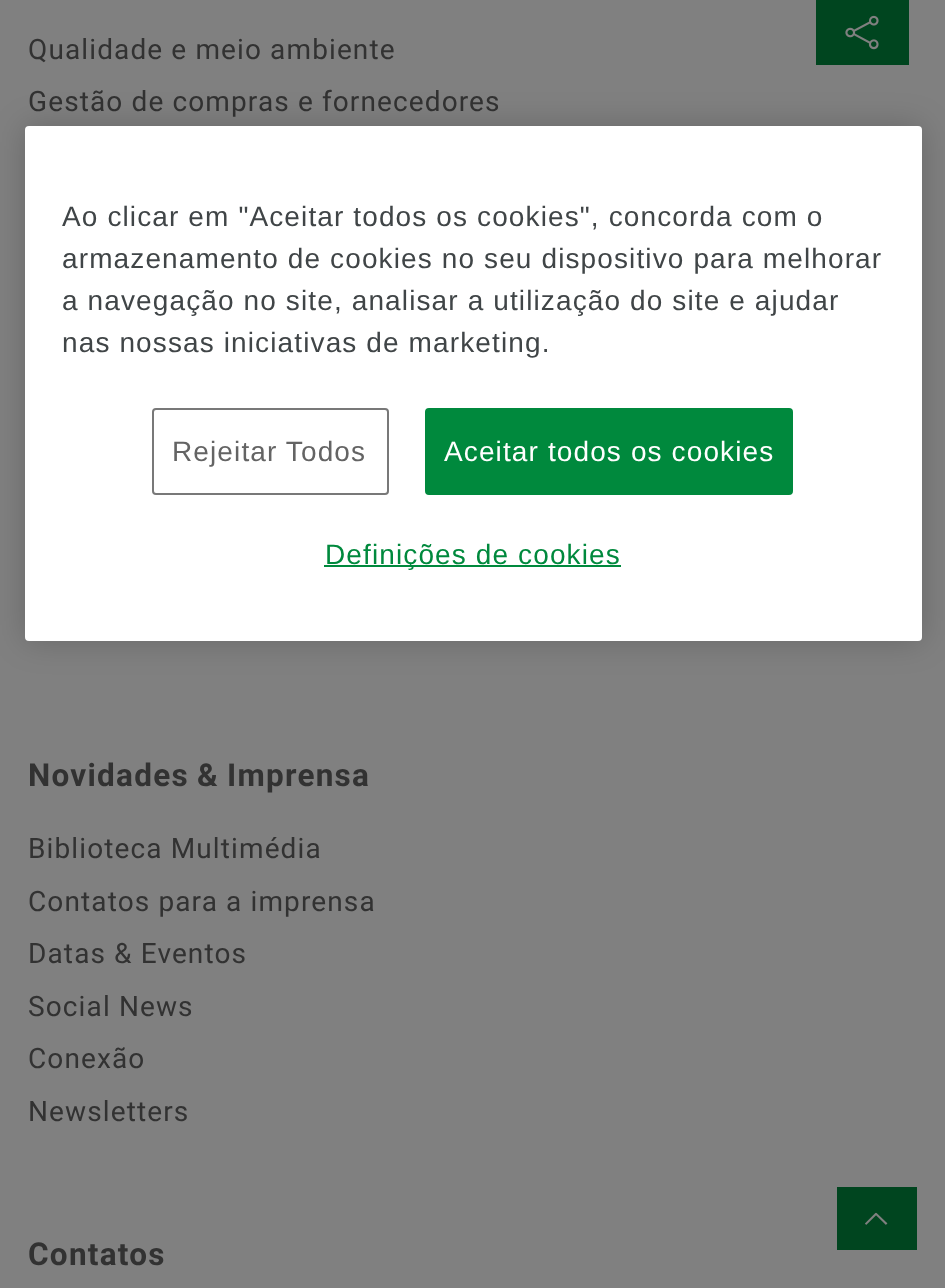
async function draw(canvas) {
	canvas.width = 945;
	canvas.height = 1288;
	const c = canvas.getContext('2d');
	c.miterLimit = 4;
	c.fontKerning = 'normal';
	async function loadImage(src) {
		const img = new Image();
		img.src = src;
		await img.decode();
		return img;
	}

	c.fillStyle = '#808080';
	c.fillRect(0, 0, 945, 1288);
	c.letterSpacing = '1.12px';
	c.font = '28px Roboto';
	c.fillStyle = '#323232';
	c.fillText('Qualidade e meio ambiente', 28, 59);
	c.fillText('Gestão de compras e fornecedores', 28, 111);
	c.letterSpacing = '1.25px';
	c.wordSpacing = '-1px';
	c.font = 'bold 31.5px Roboto';
	c.fillText('Novidades & Imprensa', 28, 786);
	c.letterSpacing = '1.12px';
	c.wordSpacing = '0px';
	c.font = '28px Roboto';
	for (const [text, x, y] of [
		['Biblioteca Multimédia', 28, 858],
		['Contatos para a imprensa', 28, 911],
		['Datas & Eventos', 28, 963],
		['Social News', 28, 1016],
		['Conexão', 28, 1068],
		['Newsletters', 28, 1121],
	]) {
		c.fillText(text, x, y);
	}
	c.letterSpacing = '1.25px';
	c.font = 'bold 31.5px Roboto';
	c.fillText('Contatos', 28, 1265);
	c.fillStyle = '#00451f';
	c.fillRect(816, 0, 93, 65);
	c.drawImage(await loadImage('img1.png'), 845, 15, 34, 35);
	c.fillStyle = '#00000033';
	c.filter = 'blur(16px)';
	c.beginPath();
	c.roundRect(25, 126, 897, 515, 4);
	c.fill();
	c.filter = 'none';
	c.fillStyle = '#fff';
	c.beginPath();
	c.roundRect(25, 126, 897, 515, 4);
	c.fill();
	c.letterSpacing = '1.12px';
	c.font = '28px Liberation Sans';
	c.fillStyle = '#404547';
	for (const [text, x, y] of [
		['Ao clicar em "Aceitar todos os cookies", concorda com o', 62, 226],
		['armazenamento de cookies no seu dispositivo para melhorar', 62, 268],
		['a navegação no site, analisar a utilização do site e ajudar', 62, 310],
		['nas nossas iniciativas de marketing.', 62, 352],
	]) {
		c.fillText(text, x, y);
	}
	c.beginPath();
	c.roundRect(153, 409, 235, 85, 3);
	c.strokeStyle = '#787878';
	c.lineWidth = 2;
	c.stroke();
	c.fillStyle = '#646464';
	c.fillText('Rejeitar Todos', 172, 461);
	c.fillStyle = '#00893d';
	c.beginPath();
	c.roundRect(426, 409, 366, 85, 3);
	c.fill();
	c.strokeStyle = '#00893d';
	c.stroke();
	c.fillStyle = '#fff';
	c.fillText('Aceitar todos os cookies', 444, 461);
	c.fillStyle = '#00893d';
	c.fillRect(324, 565, 297, 2);
	c.fillText('Definições de cookies', 325, 564);
	c.fillStyle = '#00451f';
	c.fillRect(837, 1187, 80, 63);
	c.drawImage(await loadImage('img2.png'), 865, 1212, 23, 13);
}

draw(document.querySelector('canvas'));
